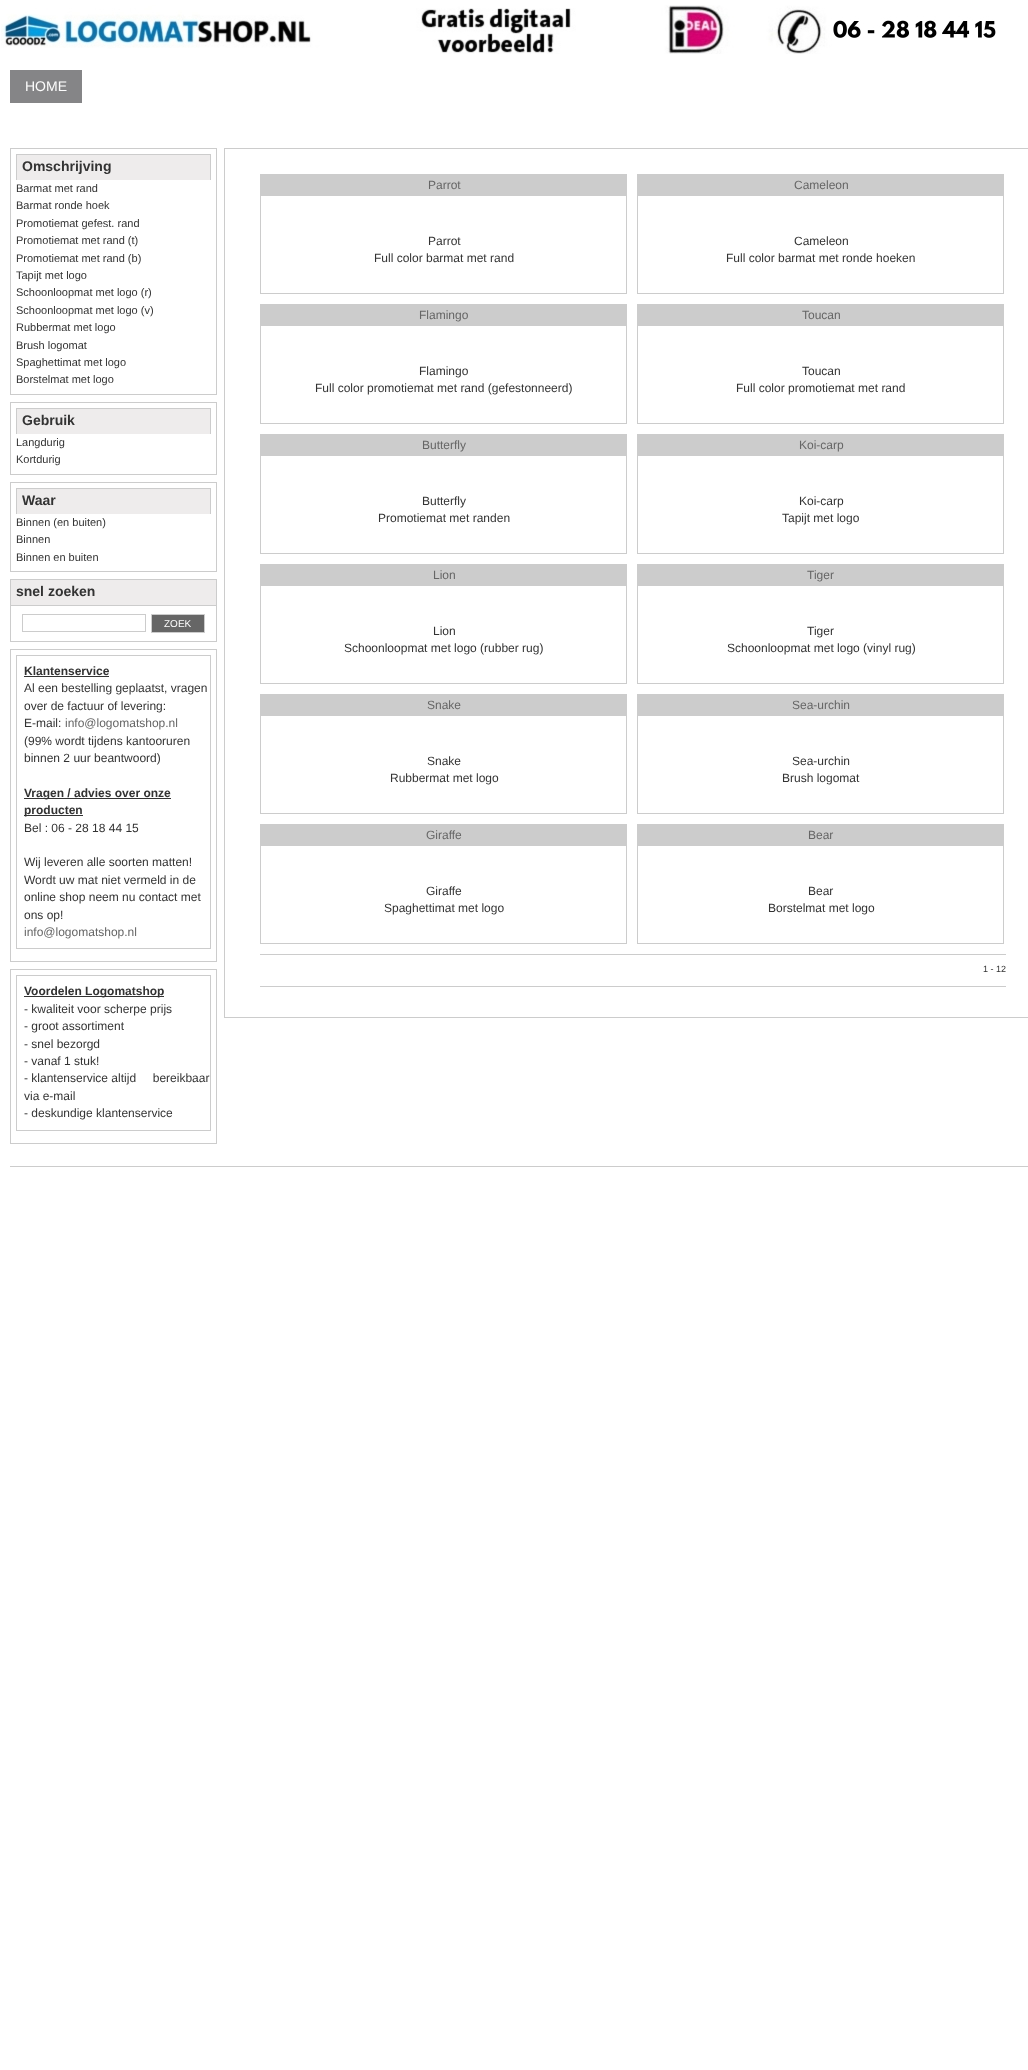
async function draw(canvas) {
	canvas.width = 1028;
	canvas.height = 2070;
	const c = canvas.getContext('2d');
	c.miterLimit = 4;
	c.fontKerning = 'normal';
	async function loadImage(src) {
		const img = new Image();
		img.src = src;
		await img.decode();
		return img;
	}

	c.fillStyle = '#fff';
	c.fillRect(0, 0, 1028, 2070);
	c.drawImage(await loadImage('img1.png'), 1, 5, 995, 49);
	c.fillStyle = '#858587';
	c.fillRect(10, 70, 72, 33);
	c.font = '14px Liberation Sans';
	c.fillStyle = '#fdfdfd';
	c.fillText('HOME', 25, 91);
	c.strokeStyle = '#ccc';
	c.strokeRect(10.5, 148.5, 206, 246);
	for (const [x, y, w, h, color] of [
		[17, 155, 193, 25, '#eeecec'],
		[16, 154, 195, 1, '#ccc'],
		[210, 154, 1, 26, '#ccc'],
		[16, 154, 1, 26, '#ccc'],
	]) {
		c.fillStyle = color;
		c.fillRect(x, y, w, h);
	}
	c.font = 'bold 14px Liberation Sans';
	c.fillStyle = '#333';
	c.fillText('Omschrijving', 22, 171);
	c.font = '11px Liberation Sans';
	for (const [text, x, y] of [
		['Barmat met rand', 16, 192],
		['Barmat ronde hoek', 16, 209],
		['Promotiemat gefest. rand', 16, 227],
		['Promotiemat met rand (t)', 16, 244],
		['Promotiemat met rand (b)', 16, 262],
		['Tapijt met logo', 16, 279],
		['Schoonloopmat met logo (r)', 16, 296],
		['Schoonloopmat met logo (v)', 16, 314],
		['Rubbermat met logo', 16, 331],
		['Brush logomat', 16, 349],
		['Spaghettimat met logo', 16, 366],
		['Borstelmat met logo', 16, 383],
	]) {
		c.fillText(text, x, y);
	}
	c.strokeRect(10.5, 402.5, 206, 72);
	for (const [x, y, w, h, color] of [
		[17, 409, 193, 25, '#eeecec'],
		[16, 408, 195, 1, '#ccc'],
		[210, 408, 1, 26, '#ccc'],
		[16, 408, 1, 26, '#ccc'],
	]) {
		c.fillStyle = color;
		c.fillRect(x, y, w, h);
	}
	c.font = 'bold 14px Liberation Sans';
	c.fillStyle = '#333';
	c.fillText('Gebruik', 22, 425);
	c.font = '11px Liberation Sans';
	c.fillText('Langdurig', 16, 446);
	c.fillText('Kortdurig', 16, 463);
	c.strokeRect(10.5, 482.5, 206, 89);
	for (const [x, y, w, h, color] of [
		[17, 489, 193, 25, '#eeecec'],
		[16, 488, 195, 1, '#ccc'],
		[210, 488, 1, 26, '#ccc'],
		[16, 488, 1, 26, '#ccc'],
	]) {
		c.fillStyle = color;
		c.fillRect(x, y, w, h);
	}
	c.font = 'bold 14px Liberation Sans';
	c.fillStyle = '#333';
	c.fillText('Waar', 22, 505);
	c.font = '11px Liberation Sans';
	for (const [text, x, y] of [
		['Binnen (en buiten)', 16, 526],
		['Binnen', 16, 543],
		['Binnen en buiten', 16, 561],
	]) {
		c.fillText(text, x, y);
	}
	for (const [x, y, w, h, color] of [
		[11, 580, 205, 25, '#eeecec'],
		[10, 579, 207, 1, '#ccc'],
		[216, 579, 1, 26, '#ccc'],
		[10, 579, 1, 26, '#ccc'],
	]) {
		c.fillStyle = color;
		c.fillRect(x, y, w, h);
	}
	c.font = 'bold 14px Liberation Sans';
	c.fillStyle = '#333';
	c.fillText('snel zoeken', 16, 596);
	c.strokeRect(10.5, 605.5, 206, 36);
	c.strokeRect(22.5, 614.5, 123, 17);
	c.fillStyle = '#666';
	c.beginPath();
	c.rect(151.5, 614.5, 53, 18);
	c.fill();
	c.stroke();
	c.font = '10px Liberation Sans';
	c.fillStyle = '#fdfdfd';
	c.fillText('ZOEK', 164, 627);
	c.strokeRect(10.5, 649.5, 206, 312);
	c.strokeRect(16.5, 655.5, 194, 293);
	c.font = 'bold 12px Liberation Sans';
	c.fillStyle = '#333';
	c.fillText('Klantenservice', 24, 675);
	c.fillRect(24, 676, 85, 1);
	c.font = '12px Liberation Sans';
	for (const [text, x, y] of [
		['Al een bestelling geplaatst, vragen', 24, 692],
		['over de factuur of levering:', 24, 710],
		['E-mail:', 24, 727],
	]) {
		c.fillText(text, x, y);
	}
	c.fillStyle = '#666';
	c.fillText('info@logomatshop.nl', 65, 727);
	c.fillStyle = '#333';
	c.fillText('(99% wordt tijdens kantooruren', 24, 745);
	c.fillText('binnen 2 uur beantwoord)', 24, 762);
	c.fillRect(24, 798, 147, 1);
	c.font = 'bold 12px Liberation Sans';
	c.fillText('Vragen / advies over onze', 24, 797);
	c.fillRect(24, 815, 59, 1);
	c.fillText('producten', 24, 814);
	c.font = '12px Liberation Sans';
	for (const [text, x, y] of [
		['Bel : 06 - 28 18 44 15', 24, 832],
		['Wij leveren alle soorten matten!', 24, 866],
		['Wordt uw mat niet vermeld in de', 24, 884],
		['online shop neem nu contact met', 24, 901],
		['ons op!', 24, 919],
	]) {
		c.fillText(text, x, y);
	}
	c.fillStyle = '#666';
	c.fillText('info@logomatshop.nl', 24, 936);
	c.strokeRect(10.5, 969.5, 206, 174);
	c.strokeRect(16.5, 975.5, 194, 155);
	c.fillStyle = '#333';
	c.fillRect(24, 996, 140, 1);
	c.font = 'bold 12px Liberation Sans';
	c.fillText('Voordelen Logomatshop', 24, 995);
	c.font = '12px Liberation Sans';
	for (const [text, x, y] of [
		['- kwaliteit voor scherpe prijs', 24, 1013],
		['- groot assortiment', 24, 1030],
		['- snel bezorgd', 24, 1048],
		['- vanaf 1 stuk!', 24, 1065],
		['- klantenservice altijd     bereikbaar', 24, 1082],
		['via e-mail', 24, 1100],
		['- deskundige klantenservice', 24, 1117],
	]) {
		c.fillText(text, x, y);
	}
	c.strokeRect(224.5, 148.5, 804, 869);
	c.strokeRect(260.5, 174.5, 366, 119);
	c.fillStyle = '#ccc';
	c.fillRect(261, 175, 365, 21);
	c.fillStyle = '#666';
	c.fillText('Parrot', 428, 189);
	c.fillStyle = '#333';
	c.fillText('Parrot', 428, 245);
	c.fillText('Full color barmat met rand', 374, 262);
	c.strokeRect(637.5, 174.5, 366, 119);
	c.fillStyle = '#ccc';
	c.fillRect(638, 175, 365, 21);
	c.fillStyle = '#666';
	c.fillText('Cameleon', 794, 189);
	c.fillStyle = '#333';
	c.fillText('Cameleon', 794, 245);
	c.fillText('Full color barmat met ronde hoeken', 726, 262);
	c.strokeRect(260.5, 304.5, 366, 119);
	c.fillStyle = '#ccc';
	c.fillRect(261, 305, 365, 21);
	c.fillStyle = '#666';
	c.fillText('Flamingo', 419, 319);
	c.fillStyle = '#333';
	c.fillText('Flamingo', 419, 375);
	c.fillText('Full color promotiemat met rand (gefestonneerd)', 315, 392);
	c.strokeRect(637.5, 304.5, 366, 119);
	c.fillStyle = '#ccc';
	c.fillRect(638, 305, 365, 21);
	c.fillStyle = '#666';
	c.fillText('Toucan', 802, 319);
	c.fillStyle = '#333';
	c.fillText('Toucan', 802, 375);
	c.fillText('Full color promotiemat met rand', 736, 392);
	c.strokeRect(260.5, 434.5, 366, 119);
	c.fillStyle = '#ccc';
	c.fillRect(261, 435, 365, 21);
	c.fillStyle = '#666';
	c.fillText('Butterfly', 422, 449);
	c.fillStyle = '#333';
	c.fillText('Butterfly', 422, 505);
	c.fillText('Promotiemat met randen', 378, 522);
	c.strokeRect(637.5, 434.5, 366, 119);
	c.fillStyle = '#ccc';
	c.fillRect(638, 435, 365, 21);
	c.fillStyle = '#666';
	c.fillText('Koi-carp', 799, 449);
	c.fillStyle = '#333';
	c.fillText('Koi-carp', 799, 505);
	c.fillText('Tapijt met logo', 782, 522);
	c.strokeRect(260.5, 564.5, 366, 119);
	c.fillStyle = '#ccc';
	c.fillRect(261, 565, 365, 21);
	c.fillStyle = '#666';
	c.fillText('Lion', 433, 579);
	c.fillStyle = '#333';
	c.fillText('Lion', 433, 635);
	c.fillText('Schoonloopmat met logo (rubber rug)', 344, 652);
	c.strokeRect(637.5, 564.5, 366, 119);
	c.fillStyle = '#ccc';
	c.fillRect(638, 565, 365, 21);
	c.fillStyle = '#666';
	c.fillText('Tiger', 807, 579);
	c.fillStyle = '#333';
	c.fillText('Tiger', 807, 635);
	c.fillText('Schoonloopmat met logo (vinyl rug)', 727, 652);
	c.strokeRect(260.5, 694.5, 366, 119);
	c.fillStyle = '#ccc';
	c.fillRect(261, 695, 365, 21);
	c.fillStyle = '#666';
	c.fillText('Snake', 427, 709);
	c.fillStyle = '#333';
	c.fillText('Snake', 427, 765);
	c.fillText('Rubbermat met logo', 390, 782);
	c.strokeRect(637.5, 694.5, 366, 119);
	c.fillStyle = '#ccc';
	c.fillRect(638, 695, 365, 21);
	c.fillStyle = '#666';
	c.fillText('Sea-urchin', 792, 709);
	c.fillStyle = '#333';
	c.fillText('Sea-urchin', 792, 765);
	c.fillText('Brush logomat', 782, 782);
	c.strokeRect(260.5, 824.5, 366, 119);
	c.fillStyle = '#ccc';
	c.fillRect(261, 825, 365, 21);
	c.fillStyle = '#666';
	c.fillText('Giraffe', 426, 839);
	c.fillStyle = '#333';
	c.fillText('Giraffe', 426, 895);
	c.fillText('Spaghettimat met logo', 384, 912);
	c.strokeRect(637.5, 824.5, 366, 119);
	c.fillStyle = '#ccc';
	c.fillRect(638, 825, 365, 21);
	c.fillStyle = '#666';
	c.fillText('Bear', 808, 839);
	c.fillStyle = '#333';
	c.fillText('Bear', 808, 895);
	c.fillText('Borstelmat met logo', 768, 912);
	c.fillStyle = '#ccc';
	c.fillRect(260, 954, 746, 1);
	c.fillRect(260, 986, 746, 1);
	c.font = '9px Liberation Sans';
	c.fillStyle = '#333';
	c.fillText('1 - 12', 983, 972);
	c.fillStyle = '#ccc';
	c.fillRect(10, 1166, 1018, 1);
}

draw(document.querySelector('canvas'));
